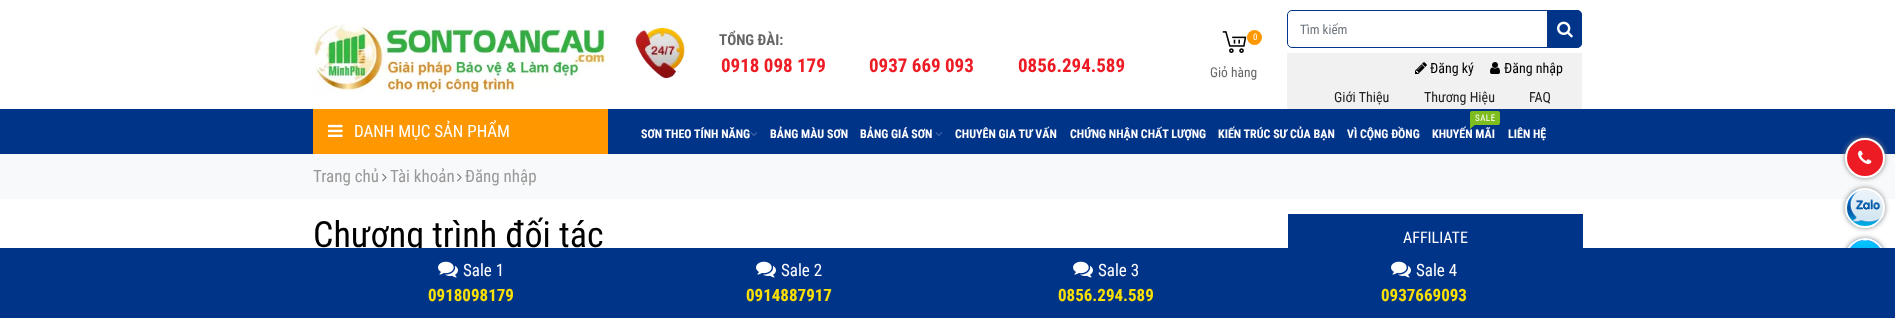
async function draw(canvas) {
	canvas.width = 1895;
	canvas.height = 318;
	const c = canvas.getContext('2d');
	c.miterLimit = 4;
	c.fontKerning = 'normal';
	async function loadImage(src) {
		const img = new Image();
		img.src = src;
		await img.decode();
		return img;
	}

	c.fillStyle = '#fff';
	c.fillRect(0, 0, 1895, 318);
	c.drawImage(await loadImage('img1.png'), 313, 24, 295, 74);
	c.drawImage(await loadImage('img2.png'), 635, 28, 50, 50);
	c.font = 'bold 15px Roboto Condensed';
	c.fillStyle = '#666';
	c.fillText('TỔNG ĐÀI:', 719, 45);
	c.font = 'bold 19px Roboto Condensed';
	c.fillStyle = '#ed1c24';
	for (const [text, x, y] of [
		['0918 098 179', 721, 72],
		['0937 669 093', 869, 72],
		['0856.294.589', 1018, 72],
	]) {
		c.fillText(text, x, y);
	}
	c.drawImage(await loadImage('img3.png'), 1222, 31, 25, 22);
	c.fillStyle = '#ff9800';
	c.beginPath();
	c.arc(1254.5, 37.5, 7.5, 0, 2 * Math.PI);
	c.fill();
	c.font = '9px Roboto Condensed';
	c.fillStyle = '#fff';
	c.fillText('0', 1253, 40);
	c.font = '13.5px Roboto Condensed';
	c.fillStyle = '#666';
	c.fillText('Giỏ hàng', 1210, 77);
	c.beginPath();
	c.roundRect(1287.5, 10.5, 294, 37, 4.5);
	c.strokeStyle = '#003489';
	c.stroke();
	c.font = '13px Roboto Condensed';
	c.fillStyle = '#6c757d';
	c.fillText('Tìm kiếm', 1300, 34);
	c.fillStyle = '#003489';
	c.beginPath();
	c.roundRect(1547, 10, 35, 38, [0, 5, 5, 0]);
	c.fill();
	c.drawImage(await loadImage('img4.png'), 1557, 21, 16, 17);
	c.fillStyle = '#f1f1f1';
	c.fillRect(1287, 53, 295, 56);
	c.drawImage(await loadImage('img5.png'), 1415, 62, 12, 12);
	c.font = '14px Roboto Condensed';
	c.fillStyle = '#000';
	c.fillText('Đăng ký', 1430, 73);
	c.drawImage(await loadImage('img6.png'), 1490, 62, 10, 12);
	c.fillText('Đăng nhập', 1504, 73);
	c.fillStyle = '#222';
	for (const [text, x, y] of [
		['Giới Thiệu', 1334, 102],
		['Thương Hiệu', 1424, 102],
		['FAQ', 1529, 102],
	]) {
		c.fillText(text, x, y);
	}
	c.fillStyle = '#003489';
	c.fillRect(0, 109, 1895, 45);
	c.fillStyle = '#ff9800';
	c.fillRect(313, 109, 295, 45);
	c.drawImage(await loadImage('img7.png'), 328, 124, 15, 13);
	c.font = '17px Roboto Condensed';
	c.fillStyle = '#fff';
	c.fillText('DANH MỤC SẢN PHẨM', 354, 137);
	c.font = 'bold 12px Roboto Condensed';
	c.fillText('SƠN THEO TÍNH NĂNG', 641, 138);
	c.drawImage(await loadImage('img8.png'), 750, 132, 7, 4);
	c.fillText('BẢNG MÀU SƠN', 770, 138);
	c.fillText('BẢNG GIÁ SƠN', 860, 138);
	c.drawImage(await loadImage('img8.png'), 935, 132, 7, 4);
	for (const [text, x, y] of [
		['CHUYÊN GIA TƯ VẤN', 955, 138],
		['CHỨNG NHẬN CHẤT LƯỢNG', 1070, 138],
		['KIẾN TRÚC SƯ CỦA BẠN', 1218, 138],
		['VÌ CỘNG ĐỒNG', 1347, 138],
	]) {
		c.fillText(text, x, y);
	}
	c.fillStyle = '#7fbc1e';
	c.beginPath();
	c.roundRect(1470, 111, 30, 14, 2);
	c.fill();
	c.letterSpacing = '0.5px';
	c.font = '9px Roboto Condensed';
	c.fillStyle = '#fff';
	c.fillText('SALE', 1475, 121);
	c.letterSpacing = '0px';
	c.font = 'bold 12px Roboto Condensed';
	c.fillText('KHUYẾN MÃI', 1432, 138);
	c.fillStyle = '#7fbc1e';
	c.beginPath();
	c.moveTo(1470, 124);
	c.lineTo(1476, 124);
	c.lineTo(1470, 129);
	c.closePath();
	c.fill();
	c.fillStyle = '#fff';
	c.fillText('LIÊN HỆ', 1508, 138);
	c.fillStyle = '#f8f9fa';
	c.fillRect(0, 154, 1895, 45);
	c.font = '17px Roboto Condensed';
	c.fillStyle = '#999';
	c.fillText('Trang chủ', 313, 182);
	c.drawImage(await loadImage('img9.png'), 382, 173, 5, 9);
	c.fillText('Tài khoản', 390, 182);
	c.drawImage(await loadImage('img9.png'), 457, 173, 5, 9);
	c.fillText('Đăng nhập', 465, 182);
	c.fillStyle = '#888';
	c.filter = 'blur(2.5px)';
	c.beginPath();
	c.roundRect(1845, 138, 40, 40, 20);
	c.fill();
	c.filter = 'none';
	c.fillStyle = '#ed1c24';
	c.beginPath();
	c.arc(1865, 158, 19, 0, 2 * Math.PI);
	c.fill();
	c.strokeStyle = '#fff';
	c.lineWidth = 2;
	c.stroke();
	c.drawImage(await loadImage('img10.png'), 1858, 150, 14, 14);
	c.fillStyle = '#888';
	c.filter = 'blur(2.5px)';
	c.beginPath();
	c.roundRect(1845, 188, 40, 40, 20);
	c.fill();
	c.filter = 'none';
	c.drawImage(await loadImage('img11.png'), 1847, 190, 36, 36);
	c.beginPath();
	c.arc(1865, 208, 19, 0, 2 * Math.PI);
	c.stroke();
	c.filter = 'blur(2.5px)';
	c.beginPath();
	c.roundRect(1845, 238, 40, 40, 20);
	c.fill();
	c.filter = 'none';
	c.fillStyle = '#168efb';
	c.beginPath();
	c.arc(1865, 258, 20, 0, 2 * Math.PI);
	c.fill();
	c.drawImage(await loadImage('img12.png'), 1850, 240, 30, 8);
	c.beginPath();
	c.arc(1865, 258, 19, 0, 2 * Math.PI);
	c.stroke();
	c.font = '36px Roboto Condensed';
	c.fillStyle = '#000';
	c.fillText('Chương trình đối tác', 313, 247);
	c.strokeStyle = '#003489';
	c.lineWidth = 1;
	c.strokeRect(1288.5, 214.5, 294, 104);
	c.fillStyle = '#003489';
	c.fillRect(1289, 215, 293, 33);
	c.font = '16px Roboto Condensed';
	c.fillStyle = '#fff';
	c.fillText('AFFILIATE', 1403, 243);
	c.fillStyle = '#003489';
	c.fillRect(0, 248, 1895, 70);
	c.drawImage(await loadImage('img13.png'), 438, 261, 20, 17);
	c.font = '17px Roboto Condensed';
	c.fillStyle = '#fff';
	c.fillText('Sale 1', 463, 276);
	c.font = 'bold 17px Roboto Condensed';
	c.fillStyle = '#fbe004';
	c.fillText('0918098179', 428, 301);
	c.drawImage(await loadImage('img13.png'), 756, 261, 20, 17);
	c.font = '17px Roboto Condensed';
	c.fillStyle = '#fff';
	c.fillText('Sale 2', 781, 276);
	c.font = 'bold 17px Roboto Condensed';
	c.fillStyle = '#fbe004';
	c.fillText('0914887917', 746, 301);
	c.drawImage(await loadImage('img13.png'), 1073, 261, 20, 17);
	c.font = '17px Roboto Condensed';
	c.fillStyle = '#fff';
	c.fillText('Sale 3', 1098, 276);
	c.font = 'bold 17px Roboto Condensed';
	c.fillStyle = '#fbe004';
	c.fillText('0856.294.589', 1058, 301);
	c.drawImage(await loadImage('img13.png'), 1391, 261, 20, 17);
	c.font = '17px Roboto Condensed';
	c.fillStyle = '#fff';
	c.fillText('Sale 4', 1416, 276);
	c.font = 'bold 17px Roboto Condensed';
	c.fillStyle = '#fbe004';
	c.fillText('0937669093', 1381, 301);
}

draw(document.querySelector('canvas'));
